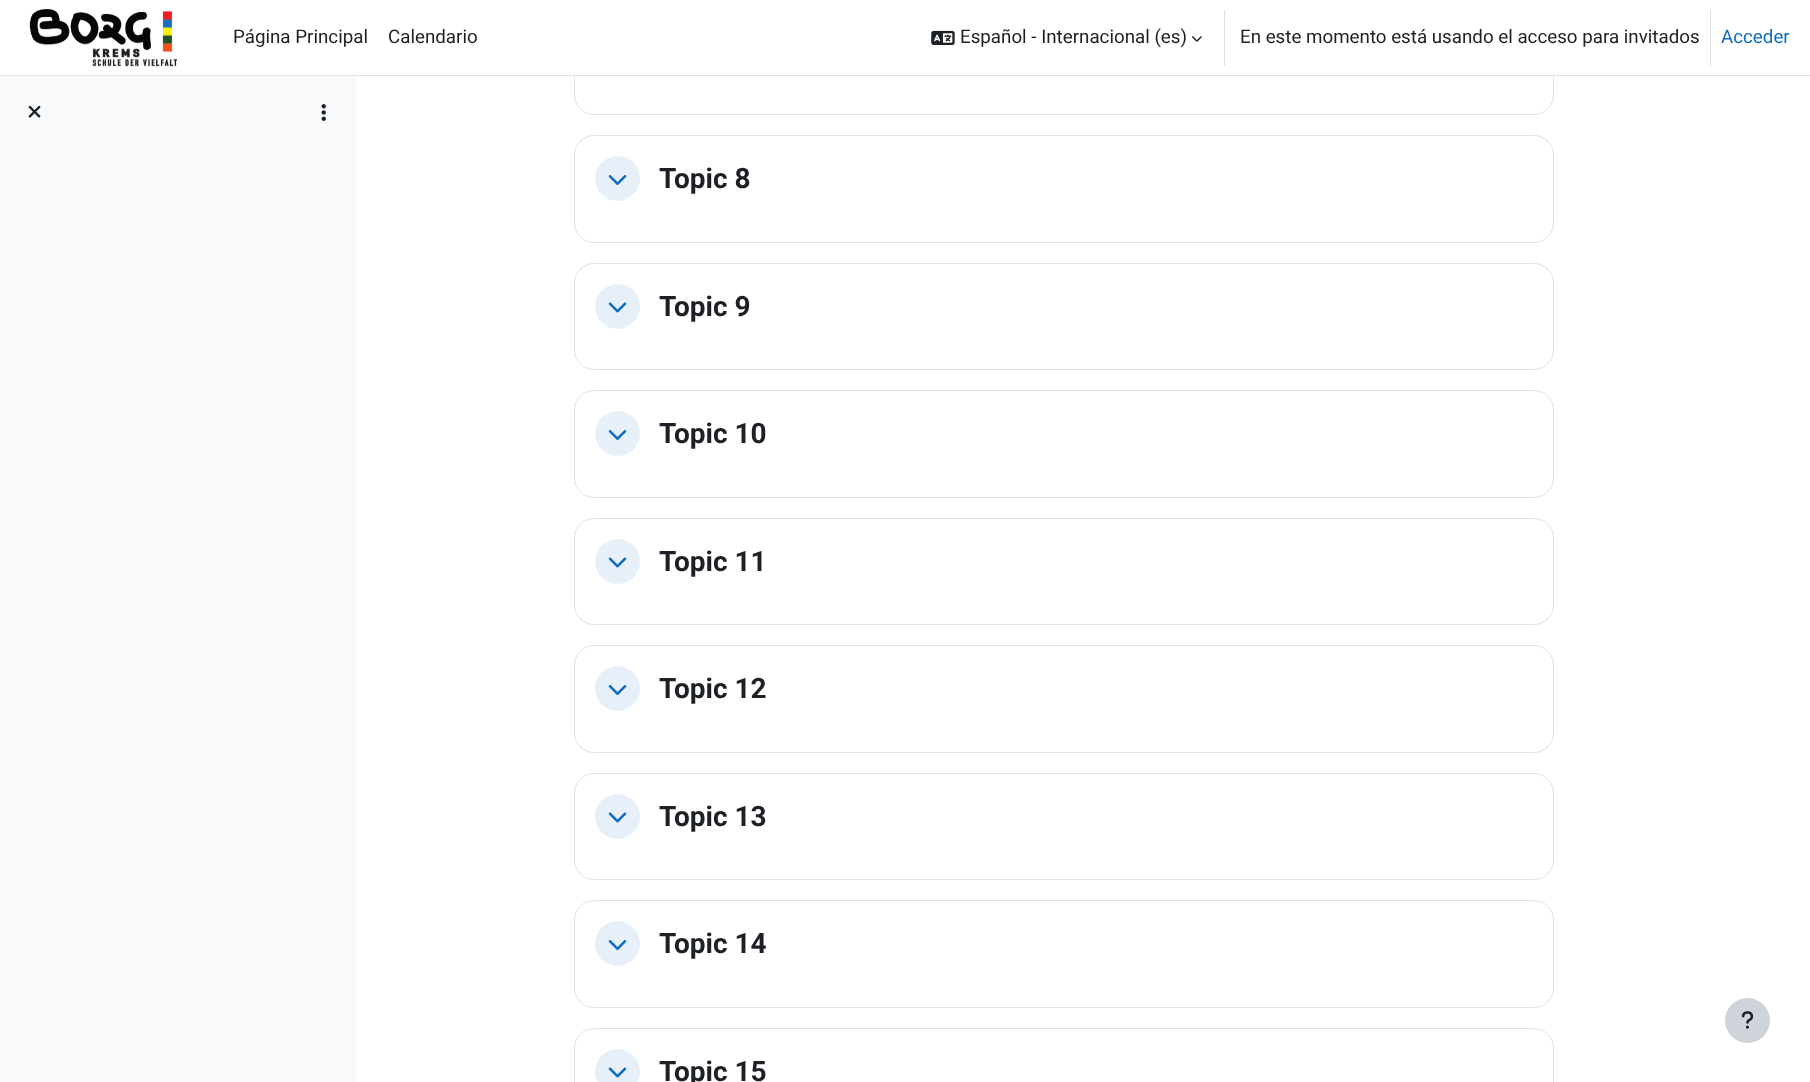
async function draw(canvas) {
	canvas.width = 1810;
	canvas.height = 1082;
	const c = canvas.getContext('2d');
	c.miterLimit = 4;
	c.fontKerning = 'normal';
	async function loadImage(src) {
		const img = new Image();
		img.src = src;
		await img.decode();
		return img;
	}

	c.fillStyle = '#fff';
	c.fillRect(0, 0, 1810, 1082);
	c.beginPath();
	c.roundRect(574.5, 8.5, 979, 106, 19.5);
	c.strokeStyle = '#dee2e6';
	c.stroke();
	c.fillRect(574, 8, 980, 67);
	c.fillStyle = '#dee2e6';
	c.fillRect(0, 75, 1810, 1);
	c.drawImage(await loadImage('img1.png'), 29, 9, 149, 58);
	c.font = '18.75px Roboto';
	c.fillStyle = '#1d2125';
	c.fillText('Página Principal', 233, 43);
	c.fillText('Calendario', 388, 43);
	c.drawImage(await loadImage('img2.png'), 931, 30, 24, 15);
	c.fillText('Español - Internacional (es)', 960, 43);
	c.drawImage(await loadImage('img3.png'), 1192, 36, 10, 6);
	c.fillStyle = '#dee2e6';
	c.fillRect(1224, 10, 1, 56);
	c.fillStyle = '#1d2125';
	c.fillText('En este momento está usando el acceso para invitados', 1240, 43);
	c.fillStyle = '#dee2e6';
	c.fillRect(1710, 10, 1, 56);
	c.fillStyle = '#0f6cbf';
	c.fillText('Acceder', 1721, 43);
	c.fillStyle = '#f8f9fa';
	c.fillRect(0, 76, 356, 1006);
	c.drawImage(await loadImage('img4.png'), 28, 105, 13, 13);
	c.drawImage(await loadImage('img5.png'), 321, 104, 5, 17);
	c.beginPath();
	c.roundRect(574.5, 135.5, 979, 107, 19.5);
	c.stroke();
	c.fillStyle = '#e7f0f9';
	c.beginPath();
	c.arc(617.5, 178.5, 22.5, 0, 2 * Math.PI);
	c.fill();
	c.drawImage(await loadImage('img6.png'), 608, 175, 19, 10);
	c.font = 'bold 28px Roboto';
	c.fillStyle = '#1d2125';
	c.fillText('Topic 8', 659, 188);
	c.beginPath();
	c.roundRect(574.5, 263.5, 979, 106, 19.5);
	c.stroke();
	c.fillStyle = '#e7f0f9';
	c.beginPath();
	c.arc(617.5, 306.5, 22.5, 0, 2 * Math.PI);
	c.fill();
	c.drawImage(await loadImage('img7.png'), 608, 302, 19, 11);
	c.fillStyle = '#1d2125';
	c.fillText('Topic 9', 659, 316);
	c.beginPath();
	c.roundRect(574.5, 390.5, 979, 107, 19.5);
	c.stroke();
	c.fillStyle = '#e7f0f9';
	c.beginPath();
	c.arc(617.5, 433.5, 22.5, 0, 2 * Math.PI);
	c.fill();
	c.drawImage(await loadImage('img6.png'), 608, 430, 19, 10);
	c.fillStyle = '#1d2125';
	c.fillText('Topic 10', 659, 443);
	c.beginPath();
	c.roundRect(574.5, 518.5, 979, 106, 19.5);
	c.stroke();
	c.fillStyle = '#e7f0f9';
	c.beginPath();
	c.arc(617.5, 561.5, 22.5, 0, 2 * Math.PI);
	c.fill();
	c.drawImage(await loadImage('img7.png'), 608, 557, 19, 11);
	c.fillStyle = '#1d2125';
	c.fillText('Topic 11', 659, 571);
	c.beginPath();
	c.roundRect(574.5, 645.5, 979, 107, 19.5);
	c.stroke();
	c.fillStyle = '#e7f0f9';
	c.beginPath();
	c.arc(617.5, 688.5, 22.5, 0, 2 * Math.PI);
	c.fill();
	c.drawImage(await loadImage('img6.png'), 608, 685, 19, 10);
	c.fillStyle = '#1d2125';
	c.fillText('Topic 12', 659, 698);
	c.beginPath();
	c.roundRect(574.5, 773.5, 979, 106, 19.5);
	c.stroke();
	c.fillStyle = '#e7f0f9';
	c.beginPath();
	c.arc(617.5, 816.5, 22.5, 0, 2 * Math.PI);
	c.fill();
	c.drawImage(await loadImage('img7.png'), 608, 812, 19, 11);
	c.fillStyle = '#1d2125';
	c.fillText('Topic 13', 659, 826);
	c.beginPath();
	c.roundRect(574.5, 900.5, 979, 107, 19.5);
	c.stroke();
	c.fillStyle = '#e7f0f9';
	c.beginPath();
	c.arc(617.5, 943.5, 22.5, 0, 2 * Math.PI);
	c.fill();
	c.drawImage(await loadImage('img6.png'), 608, 940, 19, 10);
	c.fillStyle = '#1d2125';
	c.fillText('Topic 14', 659, 953);
	c.beginPath();
	c.roundRect(574.5, 1028.5, 979, 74, 19.5);
	c.stroke();
	c.fillStyle = '#e7f0f9';
	c.beginPath();
	c.arc(617.5, 1071.5, 22.5, 0, 2 * Math.PI);
	c.fill();
	c.drawImage(await loadImage('img7.png'), 608, 1067, 19, 11);
	c.fillStyle = '#1d2125';
	c.fillText('Topic 15', 659, 1081);
	c.fillStyle = '#ced4da';
	c.beginPath();
	c.arc(1747.5, 1020.5, 22.5, 0, 2 * Math.PI);
	c.fill();
	c.drawImage(await loadImage('img8.png'), 1741, 1011, 13, 18);
}

draw(document.querySelector('canvas'));
